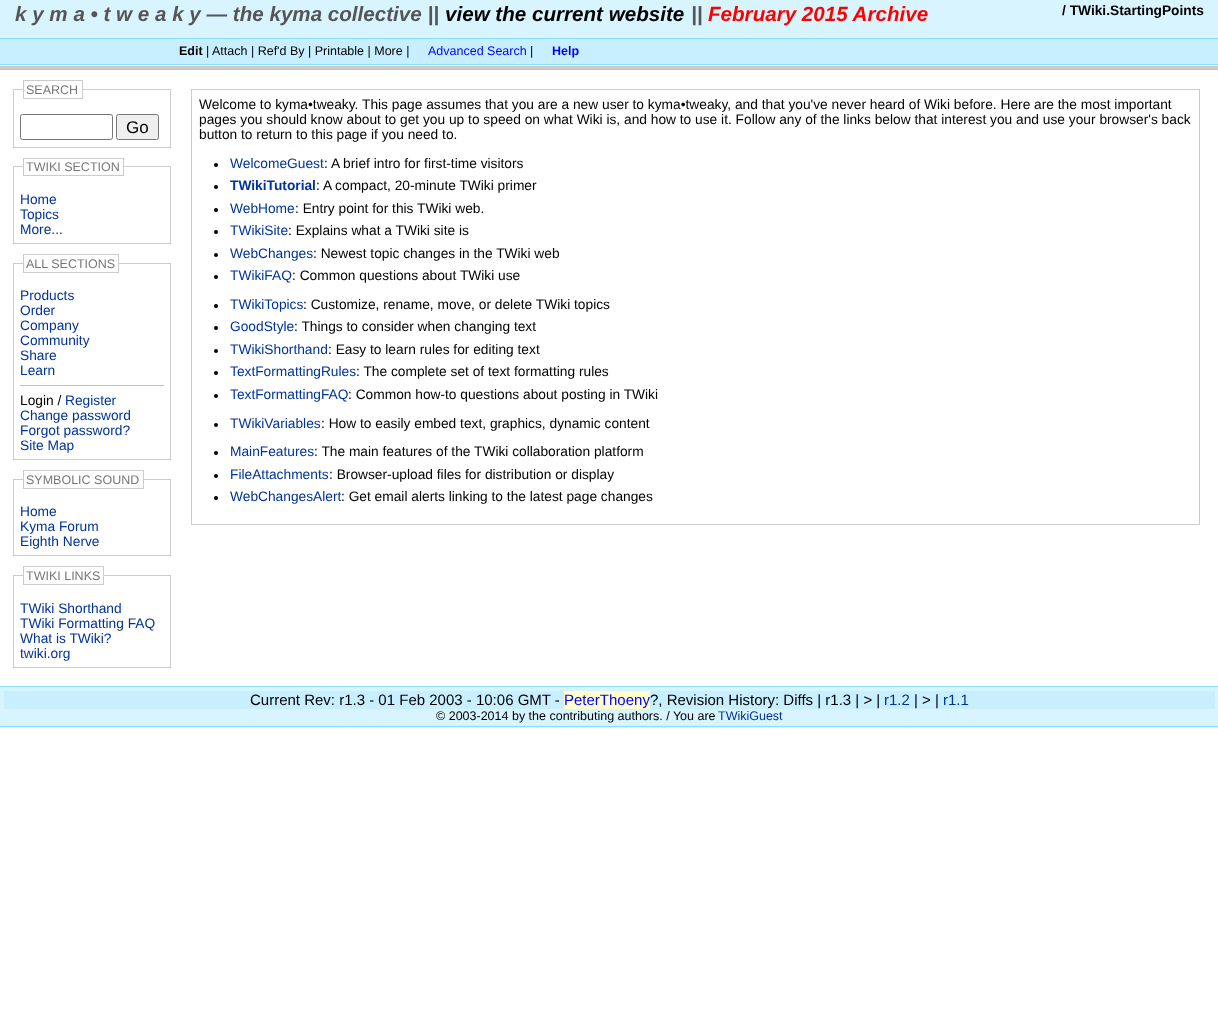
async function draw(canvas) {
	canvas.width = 1218;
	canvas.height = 1029;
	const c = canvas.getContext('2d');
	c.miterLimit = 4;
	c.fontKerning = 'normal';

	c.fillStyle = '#fff';
	c.fillRect(0, 0, 1218, 1029);
	c.fillStyle = '#d8f4ff';
	c.fillRect(0, 0, 1218, 38);
	c.fillStyle = '#8df';
	c.fillRect(0, 38, 1218, 1);
	c.font = 'italic bold 20.6px Liberation Sans';
	c.fillStyle = '#555';
	c.fillText('k y m a • t w e a k y — the kyma collective ||', 15, 21);
	c.fillStyle = '#000';
	c.fillText('view the current website', 445, 21);
	c.fillStyle = '#555';
	c.fillText('||', 691, 21);
	c.fillStyle = '#f00';
	c.fillText('February 2015 Archive', 708, 21);
	c.font = 'bold 13.75px Liberation Sans';
	c.fillStyle = '#000';
	c.fillText('/ TWiki.StartingPoints', 1062, 15);
	c.fillStyle = '#c8efff';
	c.fillRect(0, 39, 1218, 25);
	c.fillStyle = '#8df';
	c.fillRect(0, 64, 1218, 1);
	c.font = 'bold 12.5px Liberation Sans';
	c.fillStyle = '#000';
	c.fillText('Edit', 179, 55);
	c.font = '12.5px Liberation Sans';
	c.fillText('| Attach | Ref\'d By | Printable | More |', 206, 55);
	c.fillStyle = '#00f';
	c.fillText('Advanced Search', 428, 55);
	c.fillStyle = '#000';
	c.fillText('|', 530, 55);
	c.font = 'bold 12.5px Liberation Sans';
	c.fillStyle = '#00f';
	c.fillText('Help', 552, 55);
	c.fillStyle = '#ccc';
	c.fillRect(0, 66, 1218, 3);
	c.fillStyle = '#8df';
	c.fillRect(0, 69, 1218, 1);
	c.strokeStyle = '#ccc';
	c.strokeRect(13.5, 89.5, 157, 58);
	c.fillStyle = '#fff';
	c.fillRect(24, 89, 58, 1);
	c.strokeRect(23.5, 80.5, 59, 18);
	c.font = '12.5px Liberation Sans';
	c.fillStyle = '#777';
	c.fillText('SEARCH', 26, 94);
	c.beginPath();
	c.roundRect(20.5, 114.5, 92, 25, 2);
	c.strokeStyle = '#767676';
	c.stroke();
	c.fillStyle = '#efefef';
	c.beginPath();
	c.roundRect(116.5, 114.5, 42, 25, 2);
	c.fill();
	c.stroke();
	c.font = '17px Liberation Sans';
	c.fillStyle = '#000';
	c.fillText('Go', 126, 133);
	c.strokeStyle = '#ccc';
	c.strokeRect(13.5, 166.5, 157, 77);
	c.fillStyle = '#fff';
	c.fillRect(24, 166, 99, 1);
	c.strokeRect(23.5, 158.5, 100, 17);
	c.font = '12.5px Liberation Sans';
	c.fillStyle = '#777';
	c.fillText('TWIKI SECTION', 26, 171);
	c.font = '13.75px Liberation Sans';
	c.fillStyle = '#039';
	for (const [text, x, y] of [
		['Home', 20, 204],
		['Topics', 20, 219],
		['More...', 20, 234],
	]) {
		c.fillText(text, x, y);
	}
	c.strokeRect(13.5, 263.5, 157, 196);
	c.fillStyle = '#fff';
	c.fillRect(24, 263, 94, 1);
	c.strokeRect(23.5, 254.5, 95, 18);
	c.font = '12.5px Liberation Sans';
	c.fillStyle = '#777';
	c.fillText('ALL SECTIONS', 26, 268);
	c.font = '13.75px Liberation Sans';
	c.fillStyle = '#039';
	for (const [text, x, y] of [
		['Products', 20, 300],
		['Order', 20, 315],
		['Company', 20, 330],
		['Community', 20, 345],
		['Share', 20, 360],
		['Learn', 20, 375],
	]) {
		c.fillText(text, x, y);
	}
	c.fillStyle = '#c0c0c0';
	c.fillRect(20, 385, 144, 1);
	c.fillStyle = '#000';
	c.fillText('Login /', 20, 405);
	c.fillStyle = '#039';
	for (const [text, x, y] of [
		['Register', 65, 405],
		['Change password', 20, 420],
		['Forgot password?', 20, 435],
		['Site Map', 20, 450],
	]) {
		c.fillText(text, x, y);
	}
	c.strokeRect(13.5, 479.5, 157, 76);
	c.fillStyle = '#fff';
	c.fillRect(24, 479, 119, 1);
	c.strokeRect(23.5, 470.5, 120, 18);
	c.font = '12.5px Liberation Sans';
	c.fillStyle = '#777';
	c.fillText('SYMBOLIC SOUND', 26, 484);
	c.font = '13.75px Liberation Sans';
	c.fillStyle = '#039';
	for (const [text, x, y] of [
		['Home', 20, 516],
		['Kyma Forum', 20, 531],
		['Eighth Nerve', 20, 546],
	]) {
		c.fillText(text, x, y);
	}
	c.strokeRect(13.5, 575.5, 157, 92);
	c.fillStyle = '#fff';
	c.fillRect(24, 575, 79, 1);
	c.strokeRect(23.5, 566.5, 80, 18);
	c.font = '12.5px Liberation Sans';
	c.fillStyle = '#777';
	c.fillText('TWIKI LINKS', 26, 580);
	c.font = '13.75px Liberation Sans';
	c.fillStyle = '#039';
	for (const [text, x, y] of [
		['TWiki Shorthand', 20, 613],
		['TWiki Formatting FAQ', 20, 628],
		['What is TWiki?', 20, 643],
		['twiki.org', 20, 658],
	]) {
		c.fillText(text, x, y);
	}
	c.strokeRect(191.5, 89.5, 1008, 435);
	c.fillStyle = '#000';
	for (const [text, x, y] of [
		['Welcome to kyma•tweaky. This page assumes that you are a new user to kyma•tweaky, and that you\'ve never heard of Wiki before. Here are the most important', 199, 109],
		['pages you should know about to get you up to speed on what Wiki is, and how to use it. Follow any of the links below that interest you and use your browser\'s back', 199, 124],
		['button to return to this page if you need to.', 199, 139],
	]) {
		c.fillText(text, x, y);
	}
	c.beginPath();
	c.arc(216, 165, 2, 0, 2 * Math.PI);
	c.fill();
	c.fillStyle = '#039';
	c.fillText('WelcomeGuest', 230, 168);
	c.fillStyle = '#000';
	c.fillText(': A brief intro for first-time visitors', 324, 168);
	c.beginPath();
	c.arc(216, 187, 2, 0, 2 * Math.PI);
	c.fill();
	c.font = 'bold 13.75px Liberation Sans';
	c.fillStyle = '#039';
	c.fillText('TWikiTutorial', 230, 190);
	c.font = '13.75px Liberation Sans';
	c.fillStyle = '#000';
	c.fillText(': A compact, 20-minute TWiki primer', 316, 190);
	c.beginPath();
	c.arc(216, 210, 2, 0, 2 * Math.PI);
	c.fill();
	c.fillStyle = '#039';
	c.fillText('WebHome', 230, 213);
	c.fillStyle = '#000';
	c.fillText(': Entry point for this TWiki web.', 295, 213);
	c.beginPath();
	c.arc(216, 232, 2, 0, 2 * Math.PI);
	c.fill();
	c.fillStyle = '#039';
	c.fillText('TWikiSite', 230, 235);
	c.fillStyle = '#000';
	c.fillText(': Explains what a TWiki site is', 288, 235);
	c.beginPath();
	c.arc(216, 255, 2, 0, 2 * Math.PI);
	c.fill();
	c.fillStyle = '#039';
	c.fillText('WebChanges', 230, 258);
	c.fillStyle = '#000';
	c.fillText(': Newest topic changes in the TWiki web', 313, 258);
	c.beginPath();
	c.arc(216, 277, 2, 0, 2 * Math.PI);
	c.fill();
	c.fillStyle = '#039';
	c.fillText('TWikiFAQ', 230, 280);
	c.fillStyle = '#000';
	c.fillText(': Common questions about TWiki use', 292, 280);
	c.beginPath();
	c.arc(216, 306, 2, 0, 2 * Math.PI);
	c.fill();
	c.fillStyle = '#039';
	c.fillText('TWikiTopics', 230, 309);
	c.fillStyle = '#000';
	c.fillText(': Customize, rename, move, or delete TWiki topics', 303, 309);
	c.beginPath();
	c.arc(216, 328, 2, 0, 2 * Math.PI);
	c.fill();
	c.fillStyle = '#039';
	c.fillText('GoodStyle', 230, 331);
	c.fillStyle = '#000';
	c.fillText(': Things to consider when changing text', 294, 331);
	c.beginPath();
	c.arc(216, 351, 2, 0, 2 * Math.PI);
	c.fill();
	c.fillStyle = '#039';
	c.fillText('TWikiShorthand', 230, 354);
	c.fillStyle = '#000';
	c.fillText(': Easy to learn rules for editing text', 328, 354);
	c.beginPath();
	c.arc(216, 373, 2, 0, 2 * Math.PI);
	c.fill();
	c.fillStyle = '#039';
	c.fillText('TextFormattingRules', 230, 376);
	c.fillStyle = '#000';
	c.fillText(': The complete set of text formatting rules', 356, 376);
	c.beginPath();
	c.arc(216, 396, 2, 0, 2 * Math.PI);
	c.fill();
	c.fillStyle = '#039';
	c.fillText('TextFormattingFAQ', 230, 399);
	c.fillStyle = '#000';
	c.fillText(': Common how-to questions about posting in TWiki', 348, 399);
	c.beginPath();
	c.arc(216, 425, 2, 0, 2 * Math.PI);
	c.fill();
	c.fillStyle = '#039';
	c.fillText('TWikiVariables', 230, 428);
	c.fillStyle = '#000';
	c.fillText(': How to easily embed text, graphics, dynamic content', 321, 428);
	c.beginPath();
	c.arc(216, 453, 2, 0, 2 * Math.PI);
	c.fill();
	c.fillStyle = '#039';
	c.fillText('MainFeatures', 230, 456);
	c.fillStyle = '#000';
	c.fillText(': The main features of the TWiki collaboration platform', 314, 456);
	c.beginPath();
	c.arc(216, 476, 2, 0, 2 * Math.PI);
	c.fill();
	c.fillStyle = '#039';
	c.fillText('FileAttachments', 230, 479);
	c.fillStyle = '#000';
	c.fillText(': Browser-upload files for distribution or display', 329, 479);
	c.beginPath();
	c.arc(216, 498, 2, 0, 2 * Math.PI);
	c.fill();
	c.fillStyle = '#039';
	c.fillText('WebChangesAlert', 230, 501);
	c.fillStyle = '#000';
	c.fillText(': Get email alerts linking to the latest page changes', 341, 501);
	for (const [x, y, w, h, color] of [
		[0, 687, 1218, 41, '#d8f4ff'],
		[0, 686, 1218, 1, '#8df'],
		[0, 726, 1218, 1, '#8df'],
		[4, 691, 1211, 18, '#c8efff'],
	]) {
		c.fillStyle = color;
		c.fillRect(x, y, w, h);
	}
	c.font = '15px Liberation Sans';
	c.fillStyle = '#000';
	c.fillText('Current Rev: r1.3 - 01 Feb 2003 - 10:06 GMT -', 250, 705);
	c.fillStyle = '#ffffce';
	c.fillRect(564, 691, 86, 18);
	c.fillStyle = '#00f';
	c.fillText('PeterThoeny', 564, 705);
	c.fillStyle = '#000';
	c.fillText('?, Revision History: Diffs | r1.3 | > |', 650, 705);
	c.fillStyle = '#039';
	c.fillText('r1.2', 884, 705);
	c.fillStyle = '#000';
	c.fillText('| > |', 914, 705);
	c.fillStyle = '#039';
	c.fillText('r1.1', 943, 705);
	c.font = '12.5px Liberation Sans';
	c.fillStyle = '#000';
	c.fillText('© 2003-2014 by the contributing authors. / You are', 436, 720);
	c.fillStyle = '#039';
	c.fillText('TWikiGuest', 718, 720);
}

draw(document.querySelector('canvas'));
